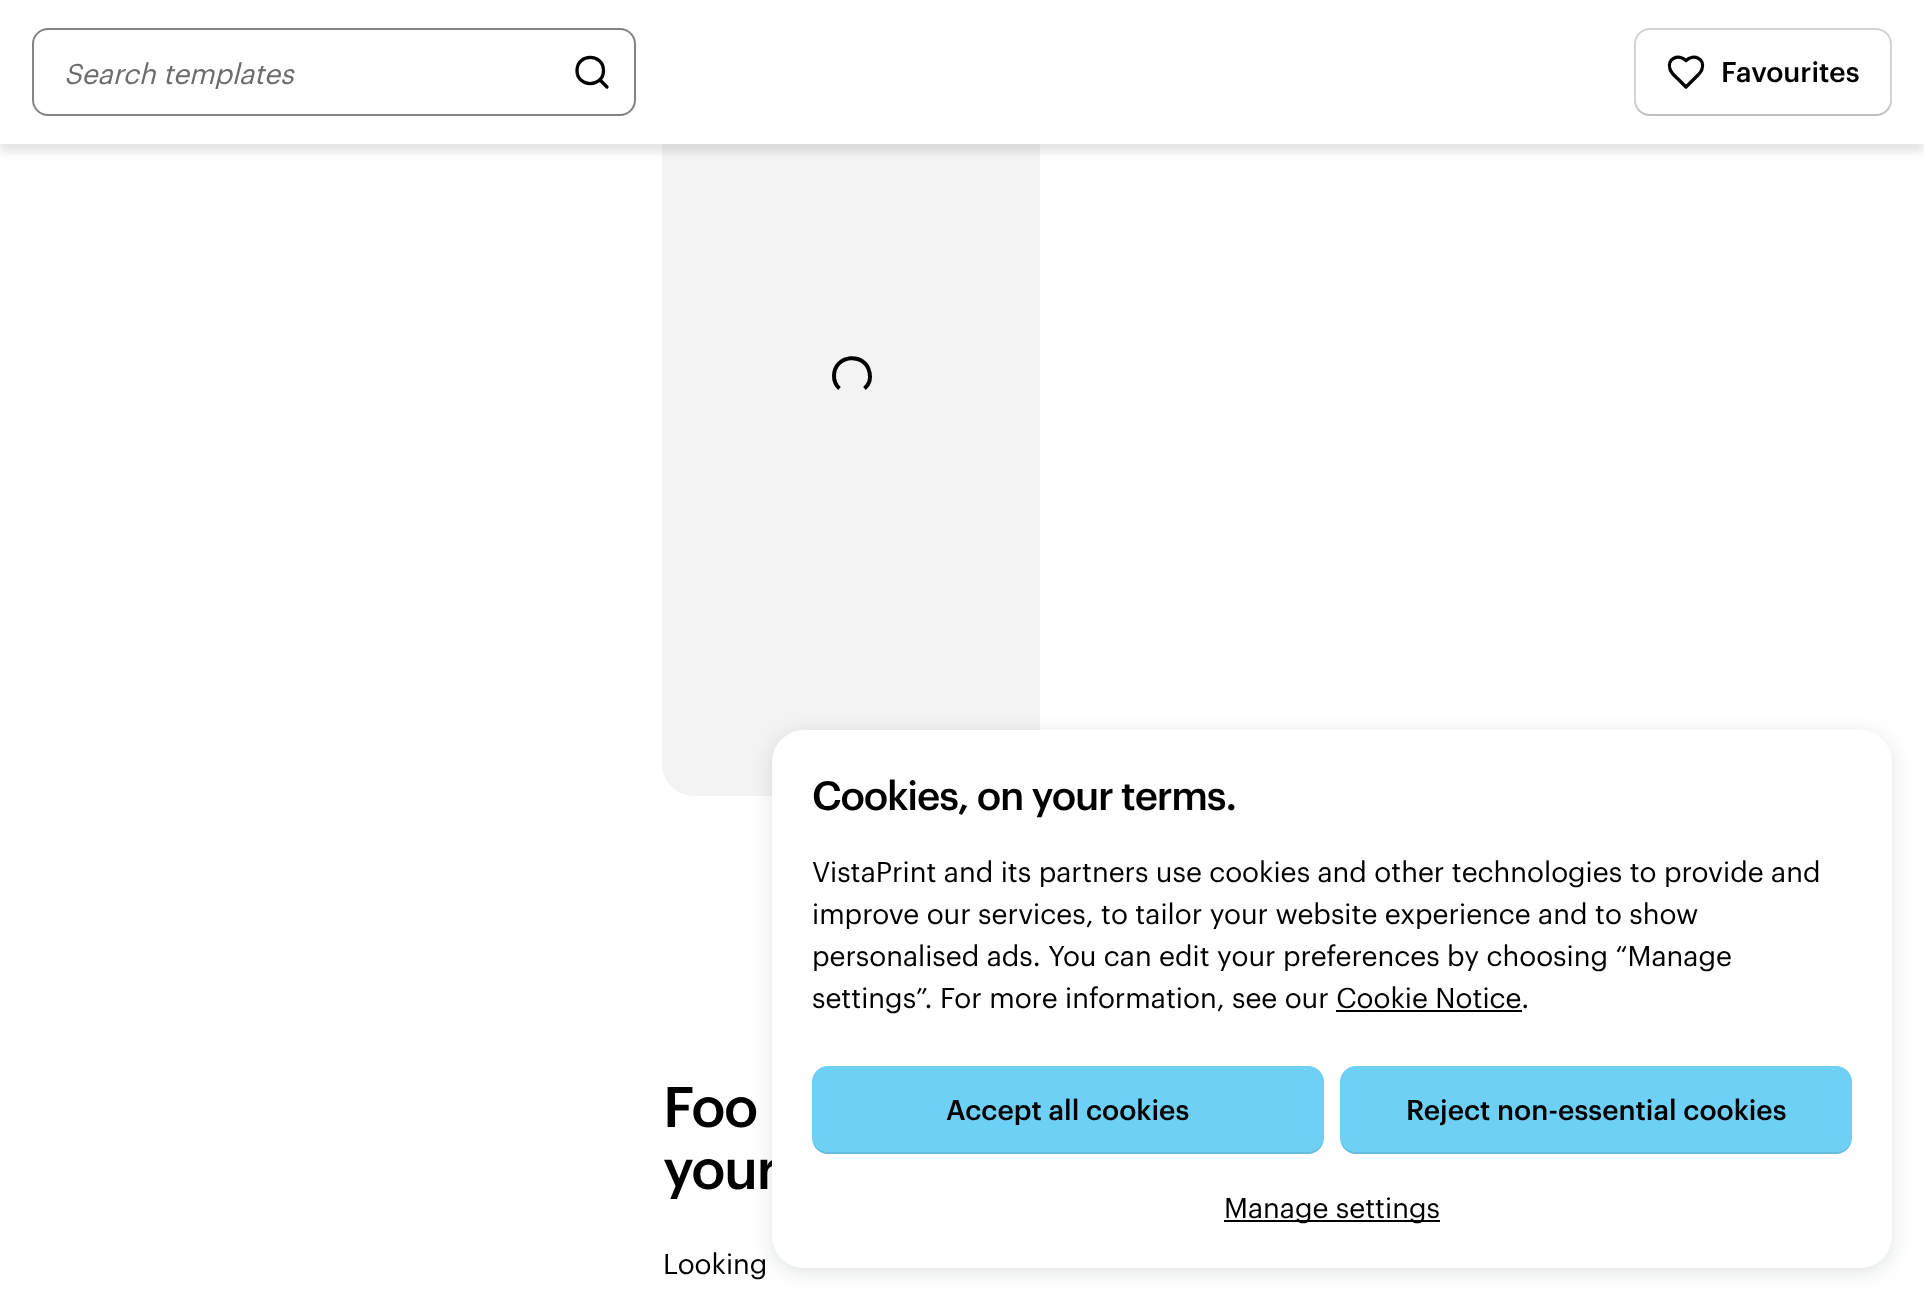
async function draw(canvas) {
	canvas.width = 1924;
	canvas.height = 1300;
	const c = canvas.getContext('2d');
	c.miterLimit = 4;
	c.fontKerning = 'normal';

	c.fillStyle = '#fff';
	c.fillRect(0, 0, 1924, 1300);
	c.fillStyle = '#f3f3f3';
	c.beginPath();
	c.roundRect(662, -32, 378, 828, 32);
	c.fill();
	c.fillStyle = '#0000001a';
	c.filter = 'blur(4px)';
	c.beginPath();
	c.rect(0, 8, 1924, 144);
	c.fill();
	c.filter = 'none';
	c.fillStyle = '#fff';
	c.fillRect(0, 0, 1924, 144);
	c.beginPath();
	c.roundRect(33, 29, 602, 86, 15);
	c.strokeStyle = '#838383';
	c.lineWidth = 2;
	c.stroke();
	c.beginPath();
	c.moveTo(607, 87);
	c.lineTo(600, 80);
	c.moveTo(603.5, 70.5);
	c.bezierCurveTo(603.5, 88, 577, 88, 577, 70.5);
	c.bezierCurveTo(577, 53, 603.5, 53, 603.5, 70.5);
	c.closePath();
	c.strokeStyle = '#000';
	c.lineWidth = 3.3;
	c.lineCap = 'round';
	c.lineJoin = 'round';
	c.stroke();
	c.font = 'italic 28px Graphik';
	c.fillStyle = '#6c6c6c';
	c.fillText('Search templates', 64, 84);
	c.beginPath();
	c.roundRect(1635, 29, 256, 86, 15);
	c.strokeStyle = '#d4d4d4';
	c.lineWidth = 2;
	c.lineJoin = 'miter';
	c.stroke();
	c.fillStyle = '#00000017';
	c.beginPath();
	c.moveTo(1634, 98);
	c.lineTo(1634, 100);
	c.bezierCurveTo(1634, 109, 1641, 116, 1650, 116);
	c.lineTo(1876, 116);
	c.bezierCurveTo(1885, 116, 1892, 109, 1892, 100);
	c.lineTo(1892, 98);
	c.bezierCurveTo(1892, 107, 1885, 114, 1876, 114);
	c.lineTo(1650, 114);
	c.bezierCurveTo(1641, 114, 1634, 107, 1634, 98);
	c.closePath();
	c.fill();
	c.beginPath();
	c.moveTo(1697.5, 75.5);
	c.bezierCurveTo(1699.5, 73.5, 1701.5, 71.5, 1702, 69);
	c.bezierCurveTo(1705.5, 59, 1693.5, 53, 1686, 60.5);
	c.bezierCurveTo(1678.5, 53, 1666.5, 59, 1670, 69);
	c.bezierCurveTo(1671, 73, 1675, 76, 1678, 79);
	c.lineTo(1686, 87);
	c.closePath();
	c.strokeStyle = '#000';
	c.lineWidth = 3.3;
	c.lineJoin = 'round';
	c.stroke();
	c.font = '500 28px Graphik';
	c.fillStyle = '#000';
	c.fillText('Favourites', 1721, 82);
	c.beginPath();
	c.moveTo(839.5, 388.5);
	c.bezierCurveTo(836, 385.5, 834, 380.5, 834, 376);
	c.bezierCurveTo(834, 354.5, 865.5, 351.5, 869.5, 372.5);
	c.bezierCurveTo(871, 378.5, 869, 384.5, 864.5, 388.5);
	c.lineWidth = 4;
	c.lineCap = 'butt';
	c.lineJoin = 'miter';
	c.stroke();
	c.letterSpacing = '-1.5px';
	c.font = '500 56px Graphik';
	c.fillText('Foo', 663, 1127);
	c.fillText('your', 663, 1189);
	c.letterSpacing = '0px';
	c.font = '28px Graphik';
	c.fillText('Looking', 663, 1274);
	c.fillStyle = '#00111a1f';
	c.filter = 'blur(10px)';
	c.beginPath();
	c.roundRect(772, 734, 1120, 538, 32);
	c.fill();
	c.filter = 'none';
	c.fillStyle = '#fff';
	c.beginPath();
	c.roundRect(772, 730, 1120, 538, 32);
	c.fill();
	c.letterSpacing = '-1.2px';
	c.font = '500 40px Graphik';
	c.fillStyle = '#000';
	c.fillText('Cookies, on your terms.', 812, 810);
	c.letterSpacing = '0px';
	c.font = '28px Graphik';
	for (const [text, x, y] of [
		['VistaPrint and its partners use cookies and other technologies to provide and', 812, 882],
		['improve our services, to tailor your website experience and to show', 812, 924],
		['personalised ads. You can edit your preferences by choosing “Manage', 812, 966],
		['settings”. For more information, see our Cookie Notice.', 812, 1008],
	]) {
		c.fillText(text, x, y);
	}
	c.fillRect(1336, 1010, 186, 2);
	c.fillStyle = '#6fd0f5';
	c.beginPath();
	c.roundRect(812, 1066, 512, 88, 16);
	c.fill();
	c.fillStyle = '#00000017';
	c.beginPath();
	c.moveTo(812, 1136);
	c.bezierCurveTo(812, 1144, 816, 1152, 825, 1154);
	c.lineTo(1308, 1154);
	c.bezierCurveTo(1318, 1154, 1324, 1146, 1324, 1136);
	c.bezierCurveTo(1324, 1145, 1317, 1152, 1308, 1152);
	c.lineTo(828, 1152);
	c.bezierCurveTo(819, 1152, 812, 1145, 812, 1136);
	c.closePath();
	c.fill();
	c.font = '500 28px Graphik';
	c.fillStyle = '#000';
	c.fillText('Accept all cookies', 946, 1120);
	c.fillStyle = '#6fd0f5';
	c.beginPath();
	c.roundRect(1340, 1066, 512, 88, 16);
	c.fill();
	c.fillStyle = '#00000017';
	c.beginPath();
	c.moveTo(1340, 1136);
	c.bezierCurveTo(1340, 1144, 1344, 1152, 1353, 1154);
	c.lineTo(1836, 1154);
	c.bezierCurveTo(1846, 1154, 1852, 1146, 1852, 1136);
	c.bezierCurveTo(1852, 1145, 1845, 1152, 1836, 1152);
	c.lineTo(1356, 1152);
	c.bezierCurveTo(1347, 1152, 1340, 1145, 1340, 1136);
	c.closePath();
	c.fill();
	c.fillStyle = '#000';
	c.fillText('Reject non-essential cookies', 1406, 1120);
	c.fillRect(1224, 1220, 216, 2);
	c.font = '28px Graphik';
	c.fillText('Manage settings', 1224, 1218);
}

draw(document.querySelector('canvas'));
